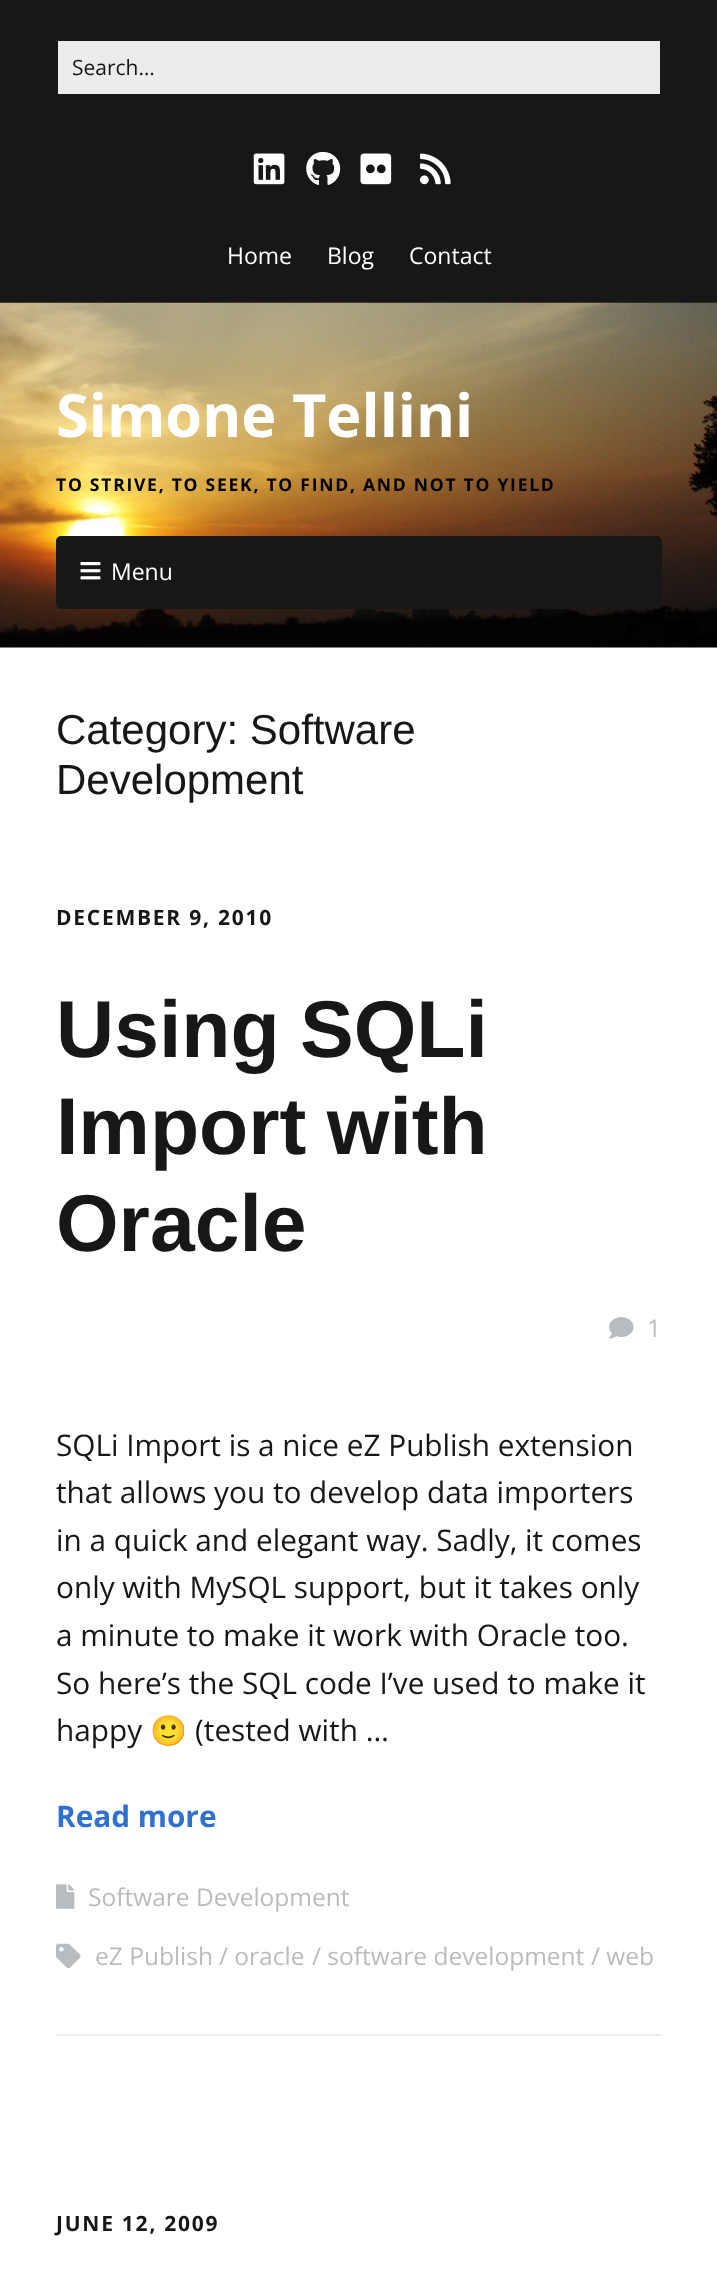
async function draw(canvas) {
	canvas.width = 717;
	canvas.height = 2284;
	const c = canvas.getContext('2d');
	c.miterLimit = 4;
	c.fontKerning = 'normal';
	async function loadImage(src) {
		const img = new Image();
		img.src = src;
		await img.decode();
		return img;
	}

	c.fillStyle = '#171717';
	c.fillRect(0, 0, 717, 2284);
	c.fillStyle = '#eaecee';
	c.fillRect(58, 41, 602, 53);
	c.font = '21px Open Sans';
	c.fillStyle = '#171717';
	c.fillText('Search…', 72, 75);
	c.drawImage(await loadImage('img1.png'), 253, 153, 32, 32);
	c.drawImage(await loadImage('img2.png'), 306, 151, 35, 34);
	c.drawImage(await loadImage('img3.png'), 360, 153, 32, 32);
	c.drawImage(await loadImage('img4.png'), 420, 153, 31, 32);
	c.font = '23px Open Sans';
	c.fillStyle = '#fff';
	for (const [text, x, y] of [
		['Home', 227, 264],
		['Blog', 327, 264],
		['Contact', 409, 264],
	]) {
		c.fillText(text, x, y);
	}
	c.fillRect(0, 647, 717, 1637);
	c.drawImage(await loadImage('img5.png'), 0, 302, 717, 346);
	c.font = 'bold 59.5px Open Sans';
	c.fillText('Simone Tellini', 56, 437);
	c.letterSpacing = '1.75px';
	c.font = 'bold 17.5px Open Sans';
	c.fillStyle = '#000';
	c.fillText('TO STRIVE, TO SEEK, TO FIND, AND NOT TO YIELD', 56, 491);
	c.fillStyle = '#171717';
	c.beginPath();
	c.roundRect(56, 536, 606, 73, 5);
	c.fill();
	c.drawImage(await loadImage('img6.png'), 80, 562, 21, 18);
	c.letterSpacing = '0px';
	c.font = '23px Open Sans';
	c.fillStyle = '#fff';
	c.fillText('Menu', 111, 580);
	c.font = '42px Liberation Sans';
	c.fillStyle = '#171717';
	c.fillText('Category: Software', 56, 744);
	c.fillText('Development', 56, 794);
	c.fillStyle = '#eaecee';
	c.fillRect(56, 2034, 606, 2);
	c.letterSpacing = '1.75px';
	c.font = 'bold 21px Open Sans';
	c.fillStyle = '#171717';
	c.fillText('DECEMBER 9, 2010', 56, 925);
	c.letterSpacing = '0px';
	c.wordSpacing = '-2px';
	c.font = 'bold 80.5px Liberation Sans';
	c.fillText('Using SQLi', 56, 1057);
	c.fillText('Import with', 56, 1154);
	c.wordSpacing = '0px';
	c.fillText('Oracle', 56, 1251);
	c.drawImage(await loadImage('img7.png'), 609, 1317, 25, 22);
	c.font = '24.5px Open Sans';
	c.fillStyle = '#b9bcbf';
	c.fillText('1', 647, 1337);
	c.font = '29.75px Open Sans';
	c.fillStyle = '#171717';
	for (const [text, x, y] of [
		['SQLi Import is a nice eZ Publish extension', 56, 1456],
		['that allows you to develop data importers', 56, 1503],
		['in a quick and elegant way. Sadly, it comes', 56, 1551],
		['only with MySQL support, but it takes only', 56, 1598],
		['a minute to make it work with Oracle too.', 56, 1646],
		['So here’s the SQL code I’ve used to make it', 56, 1694],
		['happy', 56, 1741],
	]) {
		c.fillText(text, x, y);
	}
	c.font = '29.75px Noto Color Emoji';
	c.fillText('🙂', 150, 1741);
	c.font = '29.75px Open Sans';
	c.fillText('(tested with …', 195, 1741);
	c.font = 'bold 29.75px Open Sans';
	c.fillStyle = '#3070d1';
	c.fillText('Read more', 56, 1827);
	c.drawImage(await loadImage('img8.png'), 56, 1884, 19, 25);
	c.font = '24.5px Open Sans';
	c.fillStyle = '#b9bcbf';
	c.fillText('Software Development', 88, 1906);
	c.drawImage(await loadImage('img9.png'), 56, 1943, 25, 26);
	for (const [text, x, y] of [
		['eZ Publish', 95, 1965],
		['/ oracle', 219, 1965],
		['/ software development', 312, 1965],
		['/ web', 591, 1965],
	]) {
		c.fillText(text, x, y);
	}
	c.letterSpacing = '1.75px';
	c.font = 'bold 21px Open Sans';
	c.fillStyle = '#171717';
	c.fillText('JUNE 12, 2009', 56, 2231);
}

draw(document.querySelector('canvas'));
